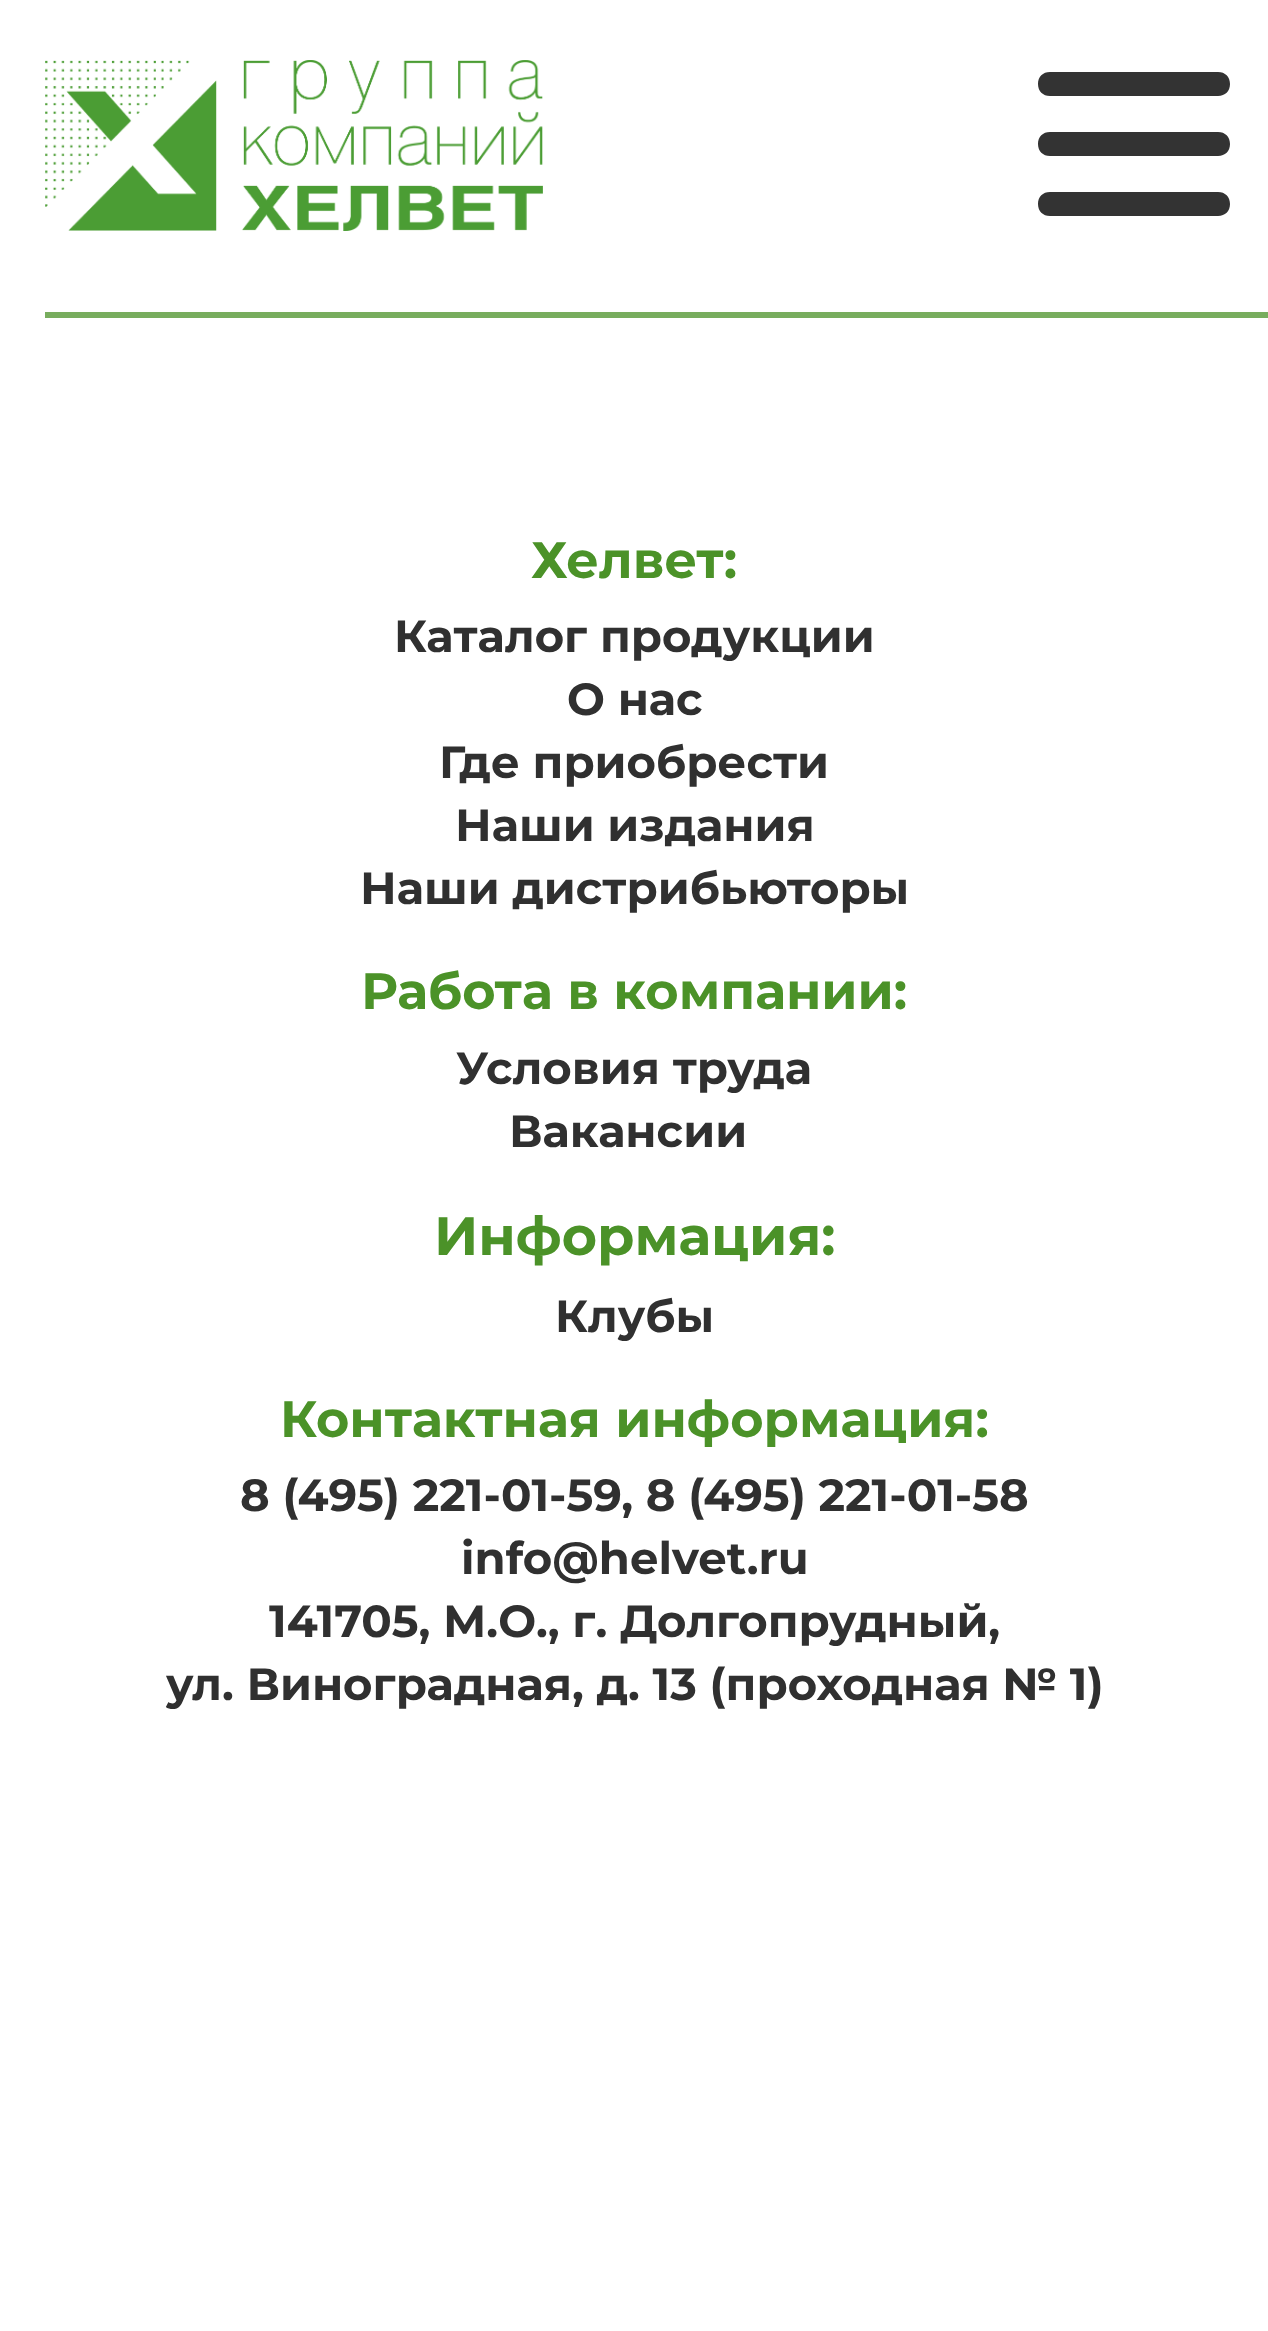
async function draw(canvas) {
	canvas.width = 1268;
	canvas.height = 2331;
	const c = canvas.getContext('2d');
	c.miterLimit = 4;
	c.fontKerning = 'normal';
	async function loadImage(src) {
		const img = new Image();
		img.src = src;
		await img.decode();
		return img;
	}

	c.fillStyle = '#fff';
	c.fillRect(0, 0, 1268, 2331);
	c.drawImage(await loadImage('img1.png'), 45, 60, 498, 171);
	c.drawImage(await loadImage('img2.png'), 1038, 72, 192, 144);
	c.fillStyle = '#78ad5e';
	c.fillRect(45, 312, 1223, 6);
	c.font = '100 51px Montserrat';
	c.fillStyle = '#4b9228';
	c.fillText('Хелвет:', 531, 578);
	c.font = '100 45px Montserrat';
	c.fillStyle = '#303030';
	for (const [text, x, y] of [
		['Каталог продукции', 394, 652],
		['О нас', 567, 715],
		['Где приобрести', 439, 778],
		['Наши издания', 455, 841],
		['Наши дистрибьюторы', 360, 904],
	]) {
		c.fillText(text, x, y);
	}
	c.font = '100 51px Montserrat';
	c.fillStyle = '#4b9228';
	c.fillText('Работа в компании:', 361, 1009);
	c.font = '100 45px Montserrat';
	c.fillStyle = '#303030';
	c.fillText('Условия труда', 456, 1084);
	c.fillText('Вакансии', 509, 1147);
	c.font = '100 54px Montserrat';
	c.fillStyle = '#4b9228';
	c.fillText('Информация:', 434, 1255);
	c.font = '100 45px Montserrat';
	c.fillStyle = '#303030';
	c.fillText('Клубы', 555, 1332);
	c.font = '100 51px Montserrat';
	c.fillStyle = '#4b9228';
	c.fillText('Контактная информация:', 280, 1437);
	c.font = '100 45px Montserrat';
	c.fillStyle = '#303030';
	for (const [text, x, y] of [
		['8 (495) 221-01-59, 8 (495) 221-01-58', 240, 1511],
		['info@helvet.ru', 461, 1574],
		['141705, М.О., г. Долгопрудный,', 269, 1637],
		['ул. Виноградная, д. 13 (проходная № 1)', 166, 1700],
	]) {
		c.fillText(text, x, y);
	}
}

draw(document.querySelector('canvas'));
